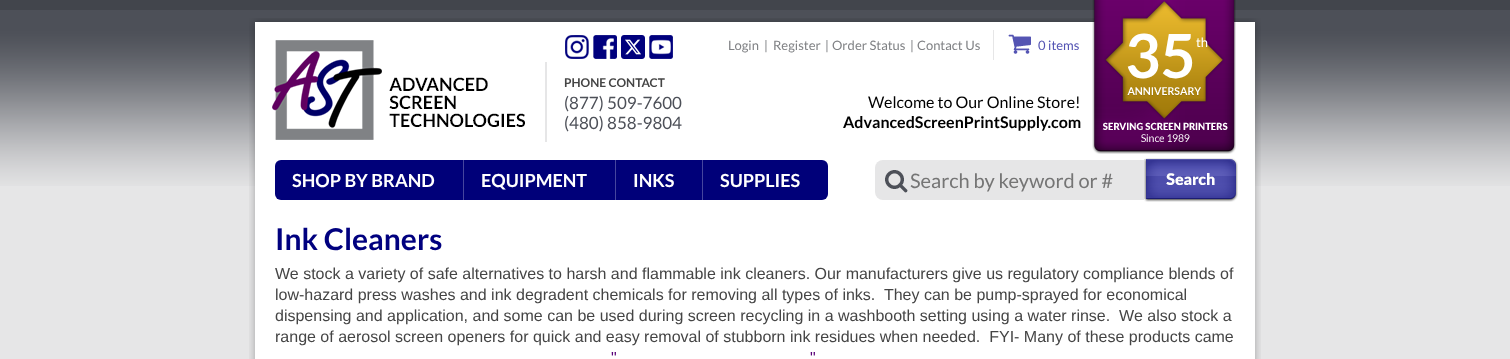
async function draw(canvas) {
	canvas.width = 1510;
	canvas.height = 359;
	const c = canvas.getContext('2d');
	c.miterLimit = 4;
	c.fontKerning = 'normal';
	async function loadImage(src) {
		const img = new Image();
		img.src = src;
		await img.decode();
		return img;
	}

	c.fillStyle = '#e6e6e7';
	c.fillRect(0, 0, 1510, 359);
	c.drawImage(await loadImage('img1.png'), 0, 0, 1510, 186);
	c.drawImage(await loadImage('img2.png'), 249, 18, 1012, 185);
	c.drawImage(await loadImage('img3.png'), 272, 40, 253, 100);
	c.drawImage(await loadImage('img4.png'), 565, 35, 24, 24);
	c.drawImage(await loadImage('img5.png'), 593, 35, 24, 24);
	c.drawImage(await loadImage('img6.png'), 621, 35, 24, 24);
	c.drawImage(await loadImage('img7.png'), 649, 35, 24, 24);
	c.fillRect(545, 62, 2, 80);
	c.font = 'bold 12px Lato';
	c.fillStyle = '#454545';
	c.fillText('PHONE CONTACT', 564, 87);
	c.font = '17px Lato';
	c.fillStyle = '#4d5058';
	c.fillText('(877) 509-7600', 564, 109);
	c.fillText('(480) 858-9804', 564, 129);
	c.font = '13px Lato';
	c.fillStyle = '#808285';
	for (const [text, x, y] of [
		['Login', 728, 50],
		['|', 764, 50],
		['Register', 773, 50],
		['|', 825, 50],
		['Order Status', 832, 50],
		['|', 910, 50],
		['Contact Us', 917, 50],
	]) {
		c.fillText(text, x, y);
	}
	c.fillStyle = '#e6e6e7';
	c.fillRect(993, 30, 1, 30);
	c.drawImage(await loadImage('img8.png'), 1008, 34, 23, 20);
	c.fillStyle = '#5454b3';
	c.fillText('0 items', 1038, 50);
	c.font = '16px Lato';
	c.fillStyle = '#000';
	c.fillText('Welcome to Our Online Store!', 868, 108);
	c.font = 'bold 16px Lato';
	c.fillText('AdvancedScreenPrintSupply.com', 843, 128);
	c.drawImage(await loadImage('img9.png'), 1092, 0, 144, 154);
	c.font = 'bold 61px Lato';
	c.fillStyle = '#fff';
	c.fillText('35', 1125, 78);
	c.font = '13px Lato';
	c.fillText('th', 1196, 47);
	c.fillStyle = '#000079';
	c.beginPath();
	c.roundRect(275, 160, 553, 40, 6);
	c.fill();
	c.fillStyle = '#45459e';
	c.fillRect(463, 160, 1, 40);
	c.font = 'bold 18px Lato';
	c.fillStyle = '#fff';
	c.fillText('SHOP BY BRAND', 292, 187);
	c.fillStyle = '#45459e';
	c.fillRect(615, 160, 1, 40);
	c.fillStyle = '#fff';
	c.fillText('EQUIPMENT', 481, 187);
	c.fillStyle = '#45459e';
	c.fillRect(702, 160, 1, 40);
	c.fillStyle = '#fff';
	c.fillText('INKS', 633, 187);
	c.fillText('SUPPLIES', 720, 187);
	c.fillStyle = '#e6e6e7';
	c.beginPath();
	c.roundRect(875, 160, 269, 40, [8, 0, 0, 8]);
	c.fill();
	c.drawImage(await loadImage('img10.png'), 885, 170, 23, 23);
	c.font = '20px Lato';
	c.fillStyle = '#757575';
	c.fillText('Search by keyword or #', 910, 188);
	c.drawImage(await loadImage('img11.png'), 1144, 158, 94, 44);
	c.drawImage(await loadImage('img12.png'), 249, 203, 1012, 156);
	c.font = 'bold 30px Lato';
	c.fillStyle = '#00007f';
	c.fillText('Ink Cleaners', 275, 250);
	c.font = '16px Liberation Sans';
	c.fillStyle = '#454545';
	for (const [text, x, y] of [
		['We stock a variety of safe alternatives to harsh and flammable ink cleaners. Our manufacturers give us regulatory compliance blends of', 275, 279],
		['low-hazard press washes and ink degradent chemicals for removing all types of inks.  They can be pump-sprayed for economical', 275, 300],
		['dispensing and application, and some can be used during screen recycling in a washbooth setting using a water rinse.  We also stock a', 275, 321],
		['range of aerosol screen openers for quick and easy removal of stubborn ink residues when needed.  FYI- Many of these products came', 275, 342],
	]) {
		c.fillText(text, x, y);
	}
	c.fillStyle = '#590078';
	c.fillText('"', 611, 363);
	c.fillText('"', 810, 363);
}

draw(document.querySelector('canvas'));
